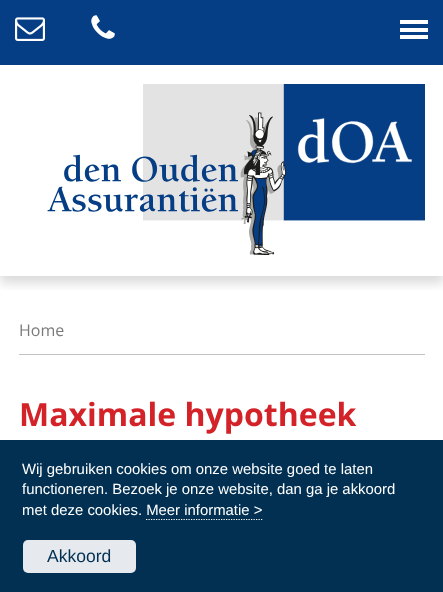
async function draw(canvas) {
	canvas.width = 443;
	canvas.height = 592;
	const c = canvas.getContext('2d');
	c.miterLimit = 4;
	c.fontKerning = 'normal';
	async function loadImage(src) {
		const img = new Image();
		img.src = src;
		await img.decode();
		return img;
	}

	c.fillStyle = '#fff';
	c.fillRect(0, 0, 443, 592);
	c.save();
	c.beginPath();
	c.rect(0, 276, 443, 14);
	c.clip();
	c.fillStyle = '#00000026';
	c.filter = 'blur(6px)';
	c.beginPath();
	c.rect(0, 71, 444, 212);
	c.fill();
	c.filter = 'none';
	c.restore();
	c.fillStyle = '#063e85';
	c.fillRect(0, 0, 443, 65);
	c.drawImage(await loadImage('img1.png'), 15, 17, 30, 24);
	c.drawImage(await loadImage('img2.png'), 91, 15, 24, 24);
	for (const [x, y, w, h, color] of [
		[400, 20, 28, 4, '#fff'],
		[400, 28, 28, 4, '#fff'],
		[400, 35, 28, 4, '#fff'],
	]) {
		c.fillStyle = color;
		c.fillRect(x, y, w, h);
	}
	c.drawImage(await loadImage('img3.png'), 47, 84, 378, 171);
	c.fillStyle = '#c2c2c2';
	c.fillRect(19, 354, 406, 1);
	c.font = '16px Open Sans';
	c.fillStyle = '#7a7a7a';
	c.fillText('Home', 19, 336);
	c.font = 'bold 32px Open Sans';
	c.fillStyle = '#d32228';
	c.fillText('Maximale hypotheek', 19, 426);
	c.fillStyle = '#023052';
	c.fillRect(0, 440, 443, 152);
	c.font = '14.9px Liberation Sans';
	c.fillStyle = '#fff';
	for (const [text, x, y] of [
		['Wij gebruiken cookies om onze website goed te laten', 22, 474],
		['functioneren. Bezoek je onze website, dan ga je akkoord', 22, 494],
		['met deze cookies. Meer informatie >', 22, 515],
	]) {
		c.fillText(text, x, y);
	}
	c.beginPath();
	c.moveTo(146, 519.5);
	c.lineTo(262.5, 519.5);
	c.strokeStyle = '#fff';
	c.lineWidth = 1.2;
	c.setLineDash([1.25, 1.25]);
	c.stroke();
	c.fillStyle = '#e6eaee';
	c.beginPath();
	c.roundRect(23, 540, 113, 33, 5);
	c.fill();
	c.font = '17.5px Liberation Sans';
	c.fillStyle = '#023052';
	c.fillText('Akkoord', 47, 562);
}

draw(document.querySelector('canvas'));
